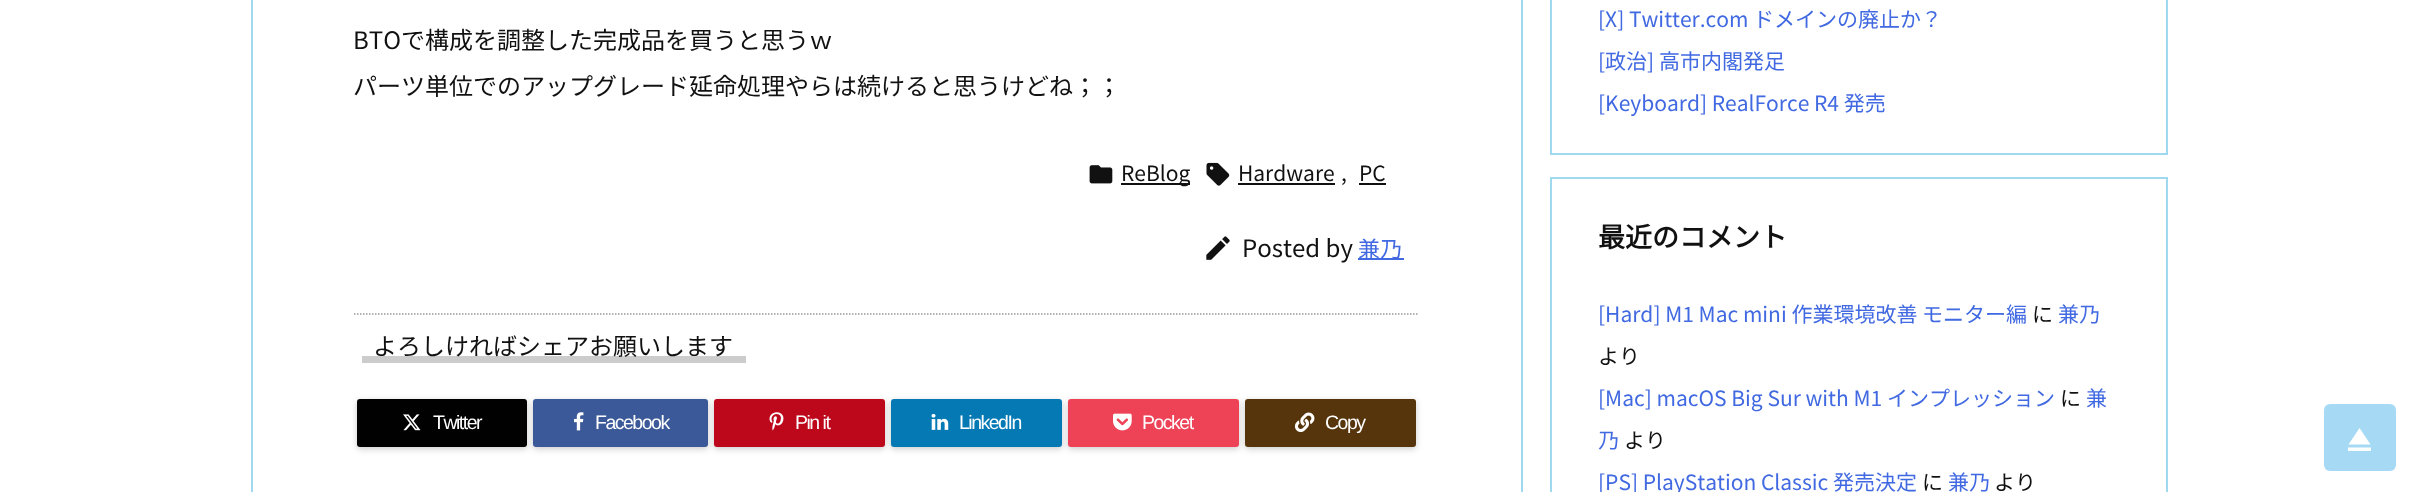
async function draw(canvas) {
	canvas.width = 2416;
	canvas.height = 492;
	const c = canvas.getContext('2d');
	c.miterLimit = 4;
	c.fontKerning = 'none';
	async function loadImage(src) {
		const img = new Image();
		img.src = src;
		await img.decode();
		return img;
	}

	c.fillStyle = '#fff';
	c.fillRect(0, 0, 2416, 492);
	c.strokeStyle = '#a0d8ef';
	c.lineWidth = 2;
	c.strokeRect(252, -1, 1270, 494);
	c.font = '100 24px Noto Sans JP';
	c.fillStyle = '#111';
	c.fillText('BTOで構成を調整した完成品を買うと思うｗ', 353, 49);
	c.fillText('パーツ単位でのアップグレード延命処理やらは続けると思うけどね；；', 353, 95);
	c.drawImage(await loadImage('img1.png'), 1089, 165, 24, 19);
	c.fillRect(1121, 183, 69, 2);
	c.font = '100 21px Noto Sans JP';
	c.fillText('ReBlog', 1121, 181);
	c.drawImage(await loadImage('img2.png'), 1206, 162, 24, 24);
	c.fillText('Hardware', 1238, 181);
	c.fillRect(1238, 183, 97, 2);
	c.fillText(',', 1341, 181);
	c.fillText('PC', 1359, 181);
	c.fillRect(1359, 183, 27, 2);
	c.drawImage(await loadImage('img3.png'), 1206, 236, 24, 24);
	c.font = '100 24px Noto Sans JP';
	c.fillText('Posted by', 1242, 257);
	c.fillStyle = '#4169e1';
	c.fillRect(1358, 258, 46, 2);
	c.font = '100 22px Noto Sans JP';
	c.fillText('兼乃', 1358, 257);
	c.beginPath();
	c.moveTo(354, 314);
	c.lineTo(1419, 314);
	c.strokeStyle = '#999';
	c.lineWidth = 1.5;
	c.setLineDash([1.5, 1.5]);
	c.stroke();
	c.fillStyle = '#ccc';
	c.fillRect(362, 356, 384, 7);
	c.font = '100 24px Noto Sans JP';
	c.fillStyle = '#111';
	c.fillText('よろしければシェアお願いします', 373, 355);
	c.fillStyle = '#00000033';
	c.filter = 'blur(3px)';
	c.beginPath();
	c.roundRect(357, 401, 170, 48, 3);
	c.fill();
	c.filter = 'none';
	c.fillStyle = '#010101';
	c.beginPath();
	c.roundRect(357, 399, 170, 48, 3);
	c.fill();
	c.drawImage(await loadImage('img4.png'), 403, 414, 18, 17);
	c.letterSpacing = '-1.5px';
	c.font = '19.5px Liberation Sans';
	c.fillStyle = '#fff';
	c.fillText('Twitter', 433, 429);
	c.fillStyle = '#00000033';
	c.filter = 'blur(3px)';
	c.beginPath();
	c.roundRect(533, 401, 175, 48, 3);
	c.fill();
	c.filter = 'none';
	c.fillStyle = '#3b5998';
	c.beginPath();
	c.roundRect(533, 399, 175, 48, 3);
	c.fill();
	c.drawImage(await loadImage('img5.png'), 574, 412, 10, 19);
	c.fillStyle = '#fff';
	c.fillText('Facebook', 595, 429);
	c.fillStyle = '#00000033';
	c.filter = 'blur(3px)';
	c.beginPath();
	c.roundRect(714, 401, 171, 48, 3);
	c.fill();
	c.filter = 'none';
	c.fillStyle = '#bd081c';
	c.beginPath();
	c.roundRect(714, 399, 171, 48, 3);
	c.fill();
	c.drawImage(await loadImage('img6.png'), 769, 412, 15, 19);
	c.fillStyle = '#fff';
	c.fillText('Pin it', 795, 429);
	c.fillStyle = '#00000033';
	c.filter = 'blur(3px)';
	c.beginPath();
	c.roundRect(891, 401, 171, 48, 3);
	c.fill();
	c.filter = 'none';
	c.fillStyle = '#0479b4';
	c.beginPath();
	c.roundRect(891, 399, 171, 48, 3);
	c.fill();
	c.drawImage(await loadImage('img7.png'), 931, 413, 18, 17);
	c.fillStyle = '#fff';
	c.fillText('LinkedIn', 959, 429);
	c.fillStyle = '#00000033';
	c.filter = 'blur(3px)';
	c.beginPath();
	c.roundRect(1068, 401, 171, 48, 3);
	c.fill();
	c.filter = 'none';
	c.fillStyle = '#ee4257';
	c.beginPath();
	c.roundRect(1068, 399, 171, 48, 3);
	c.fill();
	c.drawImage(await loadImage('img8.png'), 1113, 413, 19, 18);
	c.fillStyle = '#fff';
	c.fillText('Pocket', 1142, 429);
	c.fillStyle = '#00000033';
	c.filter = 'blur(3px)';
	c.beginPath();
	c.roundRect(1245, 401, 171, 48, 3);
	c.fill();
	c.filter = 'none';
	c.fillStyle = '#56350d';
	c.beginPath();
	c.roundRect(1245, 399, 171, 48, 3);
	c.fill();
	c.drawImage(await loadImage('img9.png'), 1294, 412, 21, 20);
	c.fillStyle = '#fff';
	c.fillText('Copy', 1325, 429);
	c.strokeStyle = '#a0d8ef';
	c.lineWidth = 2;
	c.setLineDash([]);
	c.strokeRect(1551, -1, 616, 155);
	c.letterSpacing = '0px';
	c.font = '100 21px Noto Sans JP';
	c.fillStyle = '#4169e1';
	for (const [text, x, y] of [
		['[X] Twitter.com', 1598, 27],
		['ドメインの廃止か？', 1753, 27],
		['[政治] 高市内閣発足', 1598, 69],
		['[Keyboard] RealForce R4 発売', 1598, 111],
	]) {
		c.fillText(text, x, y);
	}
	c.strokeRect(1551, 178, 616, 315);
	c.font = 'bold 27px Noto Sans JP';
	c.fillStyle = '#111';
	c.fillText('最近のコメント', 1598, 247);
	c.font = '100 21px Noto Sans JP';
	c.fillStyle = '#4169e1';
	c.fillText('[Hard] M1 Mac mini 作業環境改善 モニター編', 1598, 322);
	c.fillStyle = '#111';
	c.fillText('に', 2032, 322);
	c.fillStyle = '#4169e1';
	c.fillText('兼乃', 2058, 322);
	c.fillStyle = '#111';
	c.fillText('より', 1598, 364);
	c.fillStyle = '#4169e1';
	c.fillText('[Mac] macOS Big Sur with M1 インプレッション', 1598, 406);
	c.fillStyle = '#111';
	c.fillText('に', 2060, 406);
	c.fillStyle = '#4169e1';
	c.fillText('兼', 2086, 406);
	c.fillText('乃', 1598, 448);
	c.fillStyle = '#111';
	c.fillText('より', 1624, 448);
	c.fillStyle = '#4169e1';
	c.fillText('[PS] PlayStation Classic 発売決定', 1598, 490);
	c.fillStyle = '#111';
	c.fillText('に', 1922, 490);
	c.fillStyle = '#4169e1';
	c.fillText('兼乃', 1948, 490);
	c.fillStyle = '#111';
	c.fillText('より', 1994, 490);
	c.fillStyle = '#a6daf4';
	c.beginPath();
	c.roundRect(2324, 404, 72, 67, 6);
	c.fill();
	c.fillStyle = '#fff';
	c.beginPath();
	c.moveTo(2359.5, 428);
	c.lineTo(2370.5, 444.5);
	c.lineTo(2348.5, 444.5);
	c.closePath();
	c.moveTo(2348, 447.5);
	c.lineTo(2371, 447.5);
	c.lineTo(2371, 451);
	c.lineTo(2348, 451);
	c.closePath();
	c.fill();
}

draw(document.querySelector('canvas'));
